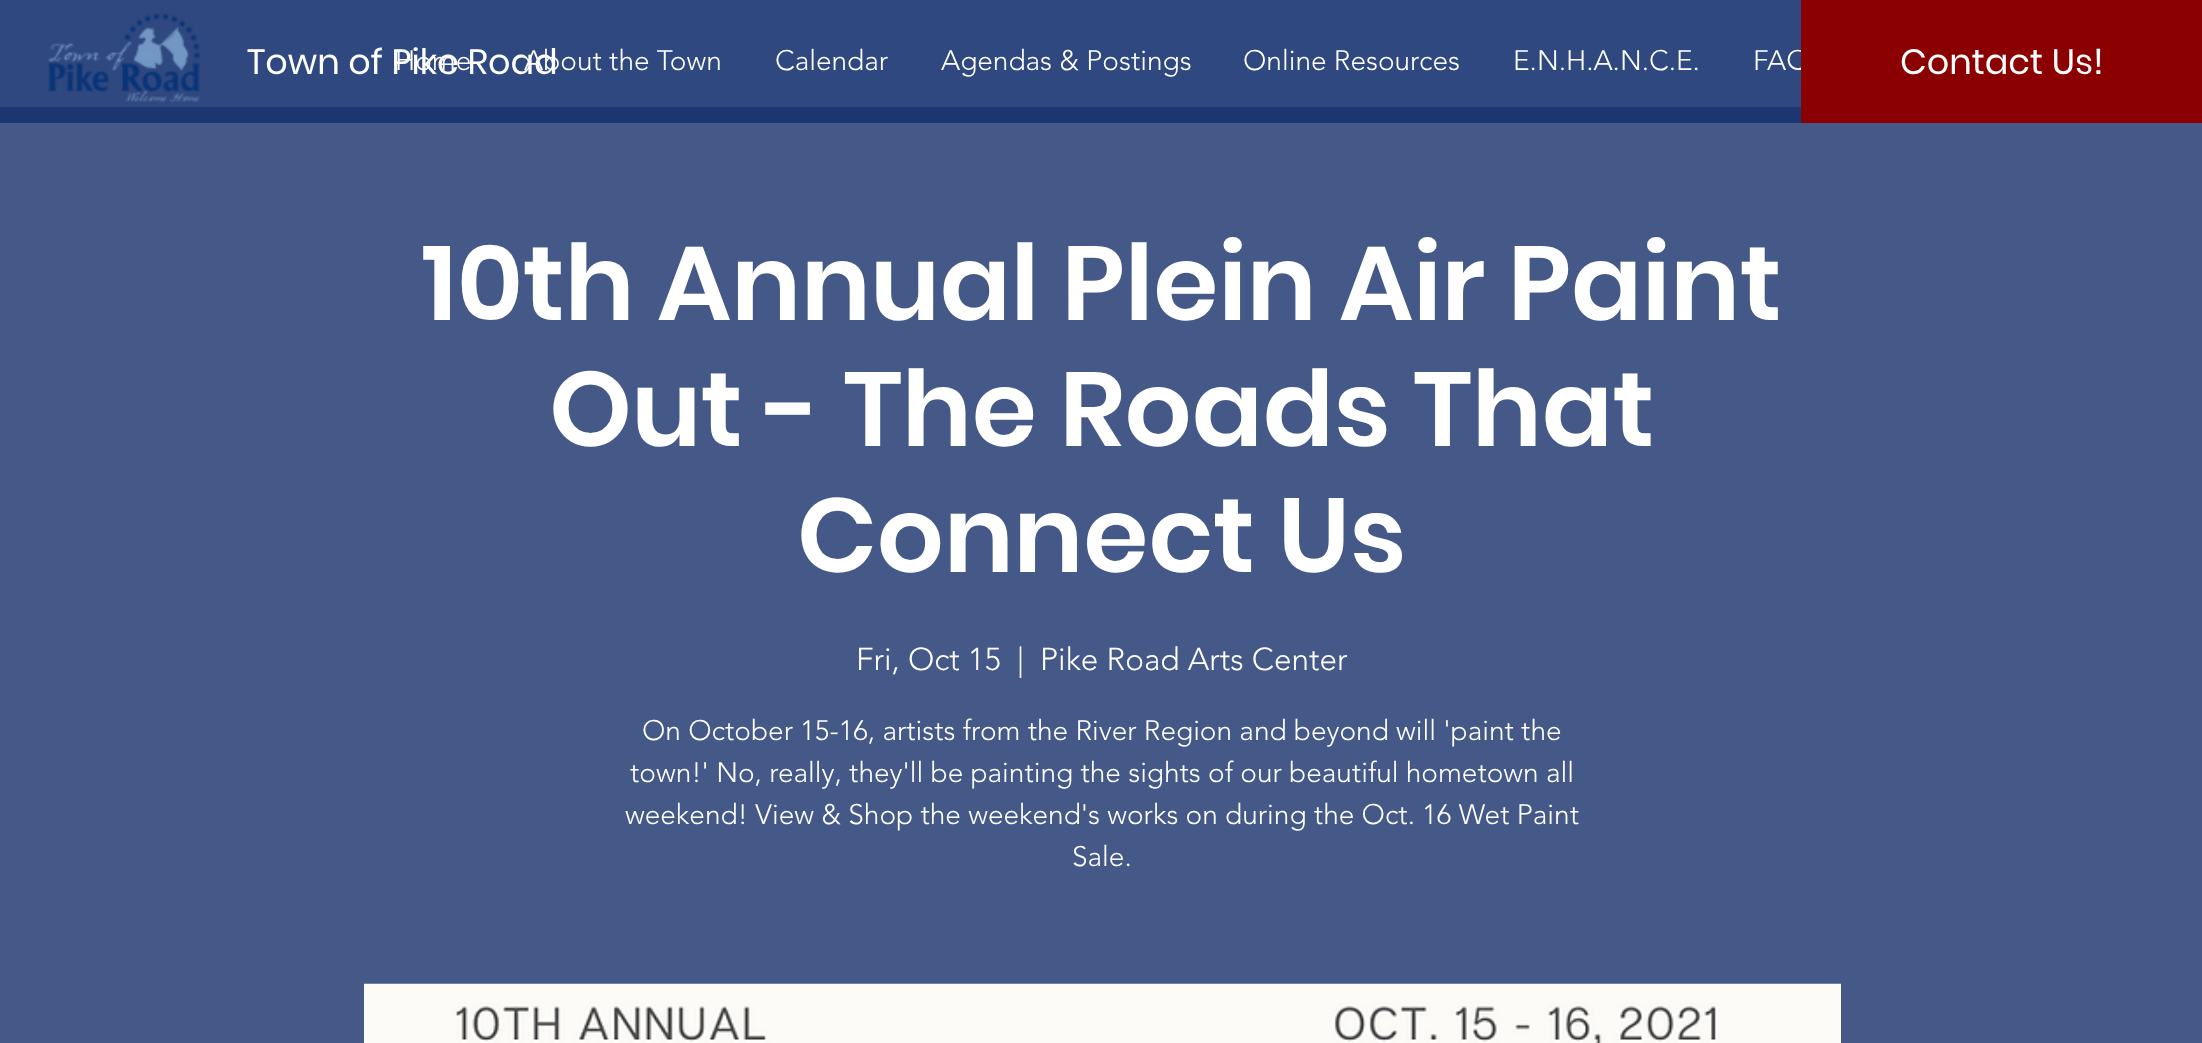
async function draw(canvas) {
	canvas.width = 2202;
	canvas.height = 1043;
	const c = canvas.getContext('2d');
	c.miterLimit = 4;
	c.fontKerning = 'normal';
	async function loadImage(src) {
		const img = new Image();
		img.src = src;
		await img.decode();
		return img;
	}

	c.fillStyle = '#2f4880';
	c.fillRect(0, 0, 2202, 1043);
	c.drawImage(await loadImage('img1.png'), 48, 13, 152, 90);
	c.font = '300 28px "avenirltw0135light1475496"';
	c.fillStyle = '#fff';
	c.fillText('Home', 395, 70);
	c.fillText('About the Town', 524, 70);
	c.font = '35px Poppins';
	c.fillText('Town of Pike Road', 247, 74);
	c.font = '300 28px "avenirltw0135light1475496"';
	for (const [text, x, y] of [
		['Calendar', 775, 70],
		['Agendas & Postings', 941, 70],
		['Online Resources', 1243, 70],
		['E.N.H.A.N.C.E.', 1513, 70],
		['FAQ', 1753, 70],
	]) {
		c.fillText(text, x, y);
	}
	c.fillStyle = '#8b0000';
	c.fillRect(1801, 0, 401, 123);
	c.font = '35px Poppins';
	c.fillStyle = '#fff';
	c.fillText('Contact Us!', 1900, 74);
	c.fillStyle = '#445988';
	c.fillRect(0, 123, 2202, 920);
	c.fillStyle = '#1b3670';
	c.fillRect(0, 107, 1801, 16);
	c.font = '600 105px Poppins';
	c.fillStyle = '#fff';
	for (const [text, x, y] of [
		['10th Annual Plein Air Paint', 422, 320],
		['Out - The Roads That', 549, 446],
		['Connect Us', 797, 572],
	]) {
		c.fillText(text, x, y);
	}
	c.font = '300 31.5px "avenirltw0135light1475496"';
	for (const [text, x, y] of [
		['Fri, Oct 15', 856, 670],
		['|', 1017, 670],
		['Pike Road Arts Center', 1040, 670],
	]) {
		c.fillText(text, x, y);
	}
	c.font = '300 28px "avenirltw0135light1475496"';
	for (const [text, x, y] of [
		['On October 15-16, artists from the River Region and beyond will \'paint the', 642, 740],
		['town!\' No, really, they\'ll be painting the sights of our beautiful hometown all', 630, 782],
		['weekend! View & Shop the weekend\'s works on during the Oct. 16 Wet Paint', 625, 824],
		['Sale.', 1072, 866],
	]) {
		c.fillText(text, x, y);
	}
	c.drawImage(await loadImage('img2.png'), 364, 983, 1477, 60);
}

draw(document.querySelector('canvas'));
